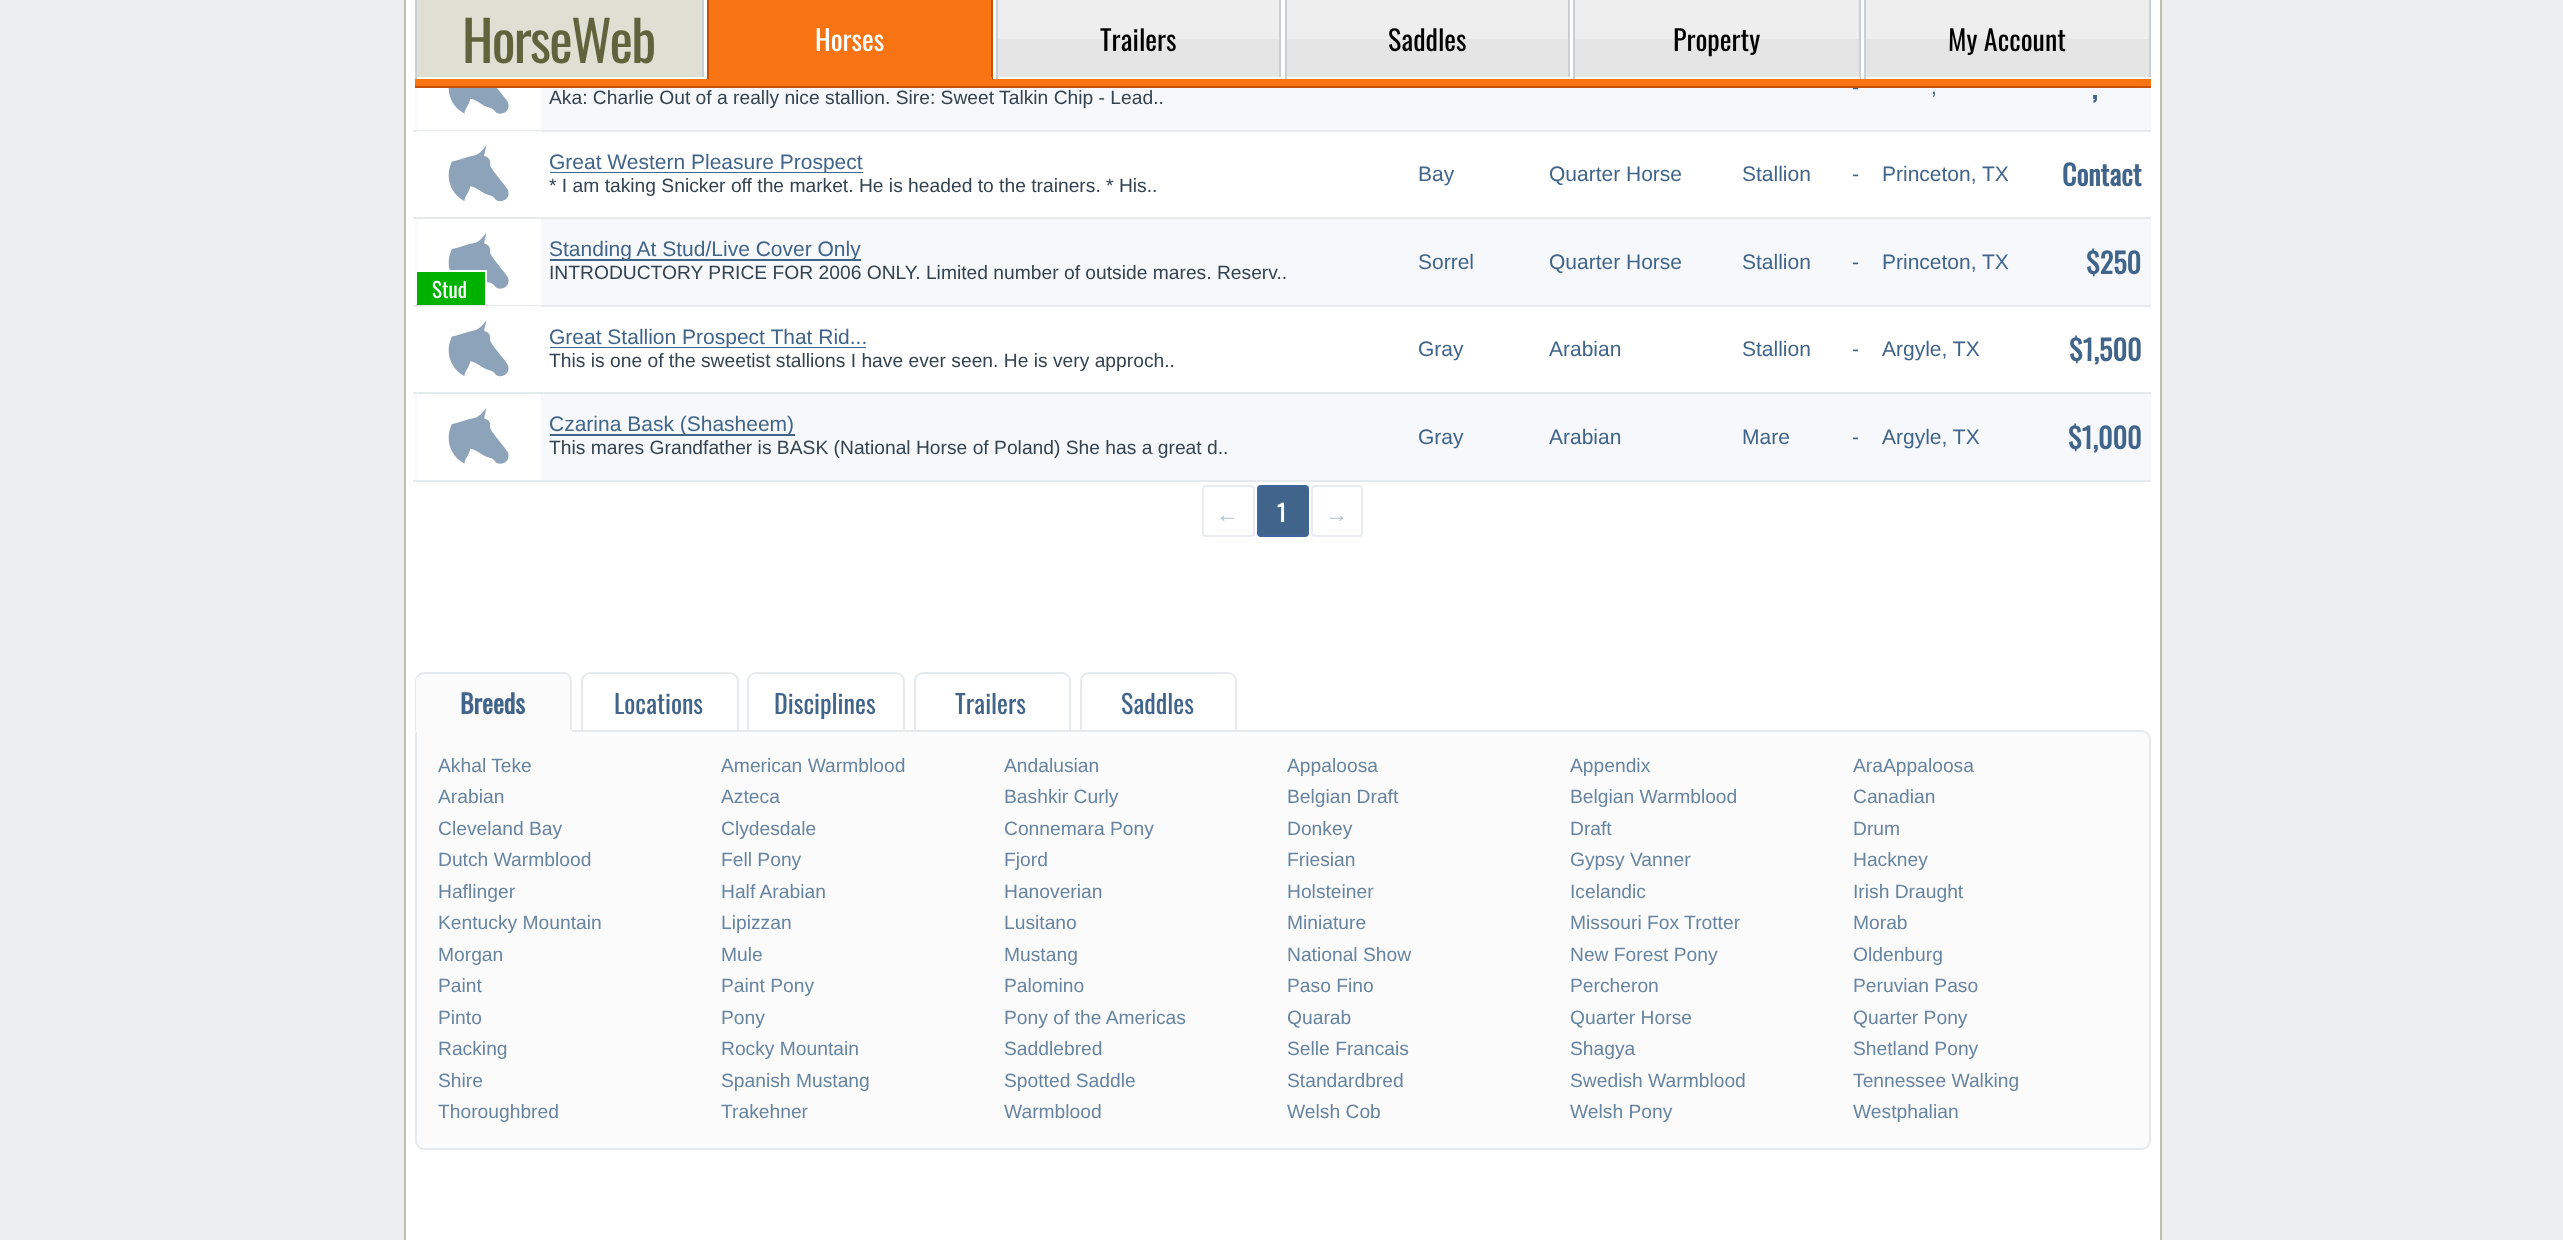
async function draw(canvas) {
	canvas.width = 2563;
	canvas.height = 1240;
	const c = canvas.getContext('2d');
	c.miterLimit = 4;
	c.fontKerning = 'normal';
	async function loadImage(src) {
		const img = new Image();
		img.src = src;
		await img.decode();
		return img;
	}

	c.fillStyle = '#edeef0';
	c.fillRect(0, 0, 2563, 1240);
	for (const [x, y, w, h, color] of [
		[406, 88, 1754, 1152, '#fff'],
		[2160, 0, 2, 1240, '#bebfac'],
		[404, 0, 2, 1240, '#bebfac'],
		[415, 88, 1736, 42, '#f6f8fb'],
	]) {
		c.fillStyle = color;
		c.fillRect(x, y, w, h);
	}
	c.font = '21px Liberation Sans';
	c.fillStyle = '#41658a';
	c.fillText('-', 1852, 94);
	for (const [x, y, w, h, color] of [
		[406, 0, 1754, 88, '#fff'],
		[417, 0, 285, 77, '#dfe0d3'],
		[702, 0, 2, 79, '#c8cfd5'],
		[702, 77, 2, 2, '#fff'],
		[415, 0, 2, 79, '#c8cfd5'],
	]) {
		c.fillStyle = color;
		c.fillRect(x, y, w, h);
	}
	c.letterSpacing = '-1.75px';
	c.font = '56px Oswald';
	c.fillStyle = '#61633d';
	c.fillText('HorseWeb', 462, 63);
	for (const [x, y, w, h, color] of [
		[709, 0, 282, 77, '#f87311'],
		[991, 0, 2, 79, '#c95000'],
		[707, 77, 285, 2, '#f87311'],
		[707, 0, 2, 79, '#c95000'],
	]) {
		c.fillStyle = color;
		c.fillRect(x, y, w, h);
	}
	c.letterSpacing = '0px';
	c.font = '28px Oswald';
	c.fillStyle = '#fff';
	c.fillText('Horses', 815, 51);
	for (const [x, y, w, h, color] of [
		[998, 0, 281, 39, '#eee'],
		[998, 39, 281, 38, '#e5e5e5'],
		[1279, 0, 2, 79, '#c8cfd5'],
		[1279, 77, 2, 2, '#fff'],
		[996, 0, 2, 79, '#c8cfd5'],
	]) {
		c.fillStyle = color;
		c.fillRect(x, y, w, h);
	}
	c.fillStyle = '#000';
	c.fillText('Trailers', 1100, 51);
	for (const [x, y, w, h, color] of [
		[1287, 0, 281, 39, '#eee'],
		[1287, 39, 281, 38, '#e5e5e5'],
		[1568, 0, 2, 79, '#c8cfd5'],
		[1568, 77, 2, 2, '#fff'],
		[1285, 0, 2, 79, '#c8cfd5'],
	]) {
		c.fillStyle = color;
		c.fillRect(x, y, w, h);
	}
	c.fillStyle = '#000';
	c.fillText('Saddles', 1388, 51);
	for (const [x, y, w, h, color] of [
		[1575, 0, 284, 39, '#eee'],
		[1575, 39, 284, 38, '#e5e5e5'],
		[1859, 0, 2, 79, '#c8cfd5'],
		[1859, 77, 1, 2, '#fff'],
		[1573, 0, 2, 79, '#c8cfd5'],
	]) {
		c.fillStyle = color;
		c.fillRect(x, y, w, h);
	}
	c.fillStyle = '#000';
	c.fillText('Property', 1673, 51);
	for (const [x, y, w, h, color] of [
		[1866, 0, 283, 39, '#eee'],
		[1866, 39, 283, 38, '#e5e5e5'],
		[2149, 0, 2, 79, '#c8cfd5'],
		[2149, 77, 2, 2, '#fff'],
		[1864, 0, 2, 79, '#c8cfd5'],
	]) {
		c.fillStyle = color;
		c.fillRect(x, y, w, h);
	}
	c.fillStyle = '#000';
	c.fillText('My Account', 1948, 51);
	for (const [x, y, w, h, color] of [
		[415, 79, 1736, 7, '#f87311'],
		[415, 86, 1736, 2, '#c95000'],
		[413, 130, 1738, 2, '#e7eaed'],
		[417, 88, 124, 42, '#fff'],
	]) {
		c.fillStyle = color;
		c.fillRect(x, y, w, h);
	}
	c.drawImage(await loadImage('img1.png'), 448, 88, 61, 26);
	c.font = '19.25px Liberation Sans';
	c.fillStyle = '#354350';
	c.fillText('Aka: Charlie Out of a really nice stallion. Sire: Sweet Talkin Chip - Lead..', 549, 104);
	c.font = '21px Liberation Sans';
	c.fillStyle = '#41658a';
	c.fillText(',', 1931, 94);
	c.font = 'bold 28px Oswald';
	c.fillText(',', 2092, 99);
	c.fillStyle = '#e7eaed';
	c.fillRect(413, 217, 1738, 2);
	c.fillStyle = '#fff';
	c.fillRect(417, 131, 124, 1);
	c.drawImage(await loadImage('img2.png'), 448, 145, 61, 57);
	c.fillStyle = '#41658a';
	c.fillRect(550, 172, 313, 1);
	c.save();
	c.beginPath();
	c.rect(550, 152, 427, 21);
	c.clip();
	c.font = '21px Liberation Sans';
	c.fillText('Great Western Pleasure Prospect', 549, 169);
	c.restore();
	c.font = '19.25px Liberation Sans';
	c.fillStyle = '#354350';
	c.fillText('* I am taking Snicker off the market. He is headed to the trainers. * His..', 549, 192);
	c.font = '21px Liberation Sans';
	c.fillStyle = '#41658a';
	for (const [text, x, y] of [
		['Bay', 1418, 181],
		['Quarter Horse', 1549, 181],
		['Stallion', 1742, 181],
		['-', 1852, 181],
		['Princeton, TX', 1882, 181],
	]) {
		c.fillText(text, x, y);
	}
	c.font = 'bold 28px Oswald';
	c.fillText('Contact', 2062, 186);
	for (const [x, y, w, h, color] of [
		[415, 219, 1736, 86, '#f6f8fb'],
		[413, 305, 1738, 2, '#e7eaed'],
		[550, 259, 311, 2, '#41658a'],
	]) {
		c.fillStyle = color;
		c.fillRect(x, y, w, h);
	}
	c.font = '21px Liberation Sans';
	c.fillText('Standing At Stud/Live Cover Only', 549, 256);
	c.font = '19.25px Liberation Sans';
	c.fillStyle = '#354350';
	c.fillText('INTRODUCTORY PRICE FOR 2006 ONLY. Limited number of outside mares. Reserv..', 549, 279);
	c.font = '21px Liberation Sans';
	c.fillStyle = '#41658a';
	for (const [text, x, y] of [
		['Sorrel', 1418, 269],
		['Quarter Horse', 1549, 269],
		['Stallion', 1742, 269],
		['-', 1852, 269],
		['Princeton, TX', 1882, 269],
	]) {
		c.fillText(text, x, y);
	}
	c.font = 'bold 28px Oswald';
	c.fillText('$250', 2086, 274);
	c.fillStyle = '#fff';
	c.fillRect(417, 219, 124, 86);
	c.drawImage(await loadImage('img3.png'), 448, 233, 61, 56);
	for (const [x, y, w, h, color] of [
		[417, 272, 68, 33, '#00b200'],
		[449, 270, 38, 2, '#fff'],
		[485, 270, 2, 12, '#fff'],
	]) {
		c.fillStyle = color;
		c.fillRect(x, y, w, h);
	}
	c.font = '21px Oswald';
	c.fillText('Stud', 432, 298);
	c.fillStyle = '#e7eaed';
	c.fillRect(413, 392, 1738, 2);
	c.fillStyle = '#fff';
	c.fillRect(417, 306, 124, 1);
	c.drawImage(await loadImage('img4.png'), 448, 320, 61, 57);
	c.fillStyle = '#41658a';
	c.fillRect(550, 347, 316, 1);
	c.save();
	c.beginPath();
	c.rect(550, 327, 427, 21);
	c.clip();
	c.font = '21px Liberation Sans';
	c.fillText('Great Stallion Prospect That Rid...', 549, 344);
	c.restore();
	c.font = '19.25px Liberation Sans';
	c.fillStyle = '#354350';
	c.fillText('This is one of the sweetist stallions I have ever seen. He is very approch..', 549, 367);
	c.font = '21px Liberation Sans';
	c.fillStyle = '#41658a';
	for (const [text, x, y] of [
		['Gray', 1418, 356],
		['Arabian', 1549, 356],
		['Stallion', 1742, 356],
		['-', 1852, 356],
		['Argyle, TX', 1882, 356],
	]) {
		c.fillText(text, x, y);
	}
	c.font = 'bold 28px Oswald';
	c.fillText('$1,500', 2069, 361);
	for (const [x, y, w, h, color] of [
		[415, 394, 1736, 86, '#f6f8fb'],
		[413, 480, 1738, 2, '#e7eaed'],
		[417, 394, 124, 86, '#fff'],
	]) {
		c.fillStyle = color;
		c.fillRect(x, y, w, h);
	}
	c.drawImage(await loadImage('img3.png'), 448, 408, 61, 56);
	c.fillStyle = '#41658a';
	c.fillRect(550, 434, 245, 2);
	c.save();
	c.beginPath();
	c.rect(550, 415, 427, 21);
	c.clip();
	c.font = '21px Liberation Sans';
	c.fillText('Czarina Bask (Shasheem)', 549, 431);
	c.restore();
	c.font = '19.25px Liberation Sans';
	c.fillStyle = '#354350';
	c.fillText('This mares Grandfather is BASK (National Horse of Poland) She has a great d..', 549, 454);
	c.font = '21px Liberation Sans';
	c.fillStyle = '#41658a';
	for (const [text, x, y] of [
		['Gray', 1418, 444],
		['Arabian', 1549, 444],
		['Mare', 1742, 444],
		['-', 1852, 444],
		['Argyle, TX', 1882, 444],
	]) {
		c.fillText(text, x, y);
	}
	c.font = 'bold 28px Oswald';
	c.fillText('$1,000', 2068, 449);
	c.beginPath();
	c.roundRect(1203, 486, 51, 50, 3);
	c.strokeStyle = '#e8ecf1';
	c.lineWidth = 2;
	c.stroke();
	c.font = '23px Liberation Serif';
	c.fillStyle = '#b3c2d0';
	c.fillText('←', 1216, 522);
	c.fillStyle = '#41658a';
	c.beginPath();
	c.roundRect(1258, 486, 50, 50, 3);
	c.fill();
	c.strokeStyle = '#41659a';
	c.stroke();
	c.font = 'bold 23px Oswald';
	c.fillStyle = '#fff';
	c.fillText('1', 1277, 522);
	c.beginPath();
	c.roundRect(1312, 486, 50, 50, 3);
	c.strokeStyle = '#e8ecf1';
	c.stroke();
	c.font = '23px Liberation Serif';
	c.fillStyle = '#b3c2d0';
	c.fillText('→', 1325, 522);
	c.fillStyle = '#fbfbfb';
	c.beginPath();
	c.roundRect(416, 731, 1734, 418, [0, 8, 8, 8]);
	c.fill();
	c.strokeStyle = '#e7eaed';
	c.stroke();
	c.beginPath();
	c.roundRect(415, 672, 157, 60, [9, 9, 0, 0]);
	c.fill();
	c.fillStyle = '#e7eaed';
	c.beginPath();
	c.moveTo(424, 672);
	c.bezierCurveTo(421, 672, 419, 673, 418, 675);
	c.lineTo(419, 676);
	c.bezierCurveTo(420, 675, 422, 674, 424, 674);
	c.lineTo(564, 674);
	c.bezierCurveTo(566, 674, 567, 675, 568, 676);
	c.lineTo(570, 675);
	c.bezierCurveTo(568, 673, 566, 672, 564, 672);
	c.closePath();
	c.fill();
	c.beginPath();
	c.moveTo(570, 675);
	c.bezierCurveTo(571, 676, 572, 679, 572, 681);
	c.lineTo(572, 731);
	c.lineTo(570, 729);
	c.lineTo(570, 681);
	c.bezierCurveTo(570, 679, 569, 677, 568, 676);
	c.closePath();
	c.fill();
	c.fillStyle = '#fbfbfb';
	c.beginPath();
	c.moveTo(415, 732);
	c.lineTo(416, 730);
	c.lineTo(570, 730);
	c.lineTo(570, 729);
	c.lineTo(572, 731);
	c.closePath();
	c.fill();
	c.fillStyle = '#e7eaed';
	c.beginPath();
	c.moveTo(418, 675);
	c.bezierCurveTo(416, 676, 415, 679, 415, 681);
	c.lineTo(415, 731);
	c.lineTo(416, 730);
	c.lineTo(416, 681);
	c.bezierCurveTo(416, 679, 417, 677, 419, 676);
	c.closePath();
	c.fill();
	c.font = 'bold 26px Oswald';
	c.fillStyle = '#41658a';
	c.fillText('Breeds', 460, 714);
	c.beginPath();
	c.roundRect(582, 673, 156, 58, [8, 8, 0, 0]);
	c.stroke();
	c.font = '26px Oswald';
	c.fillText('Locations', 614, 714);
	c.beginPath();
	c.roundRect(748, 673, 156, 58, [8, 8, 0, 0]);
	c.stroke();
	c.fillText('Disciplines', 774, 714);
	c.beginPath();
	c.roundRect(915, 673, 155, 58, [8, 8, 0, 0]);
	c.stroke();
	c.fillText('Trailers', 955, 714);
	c.beginPath();
	c.roundRect(1081, 673, 155, 58, [8, 8, 0, 0]);
	c.stroke();
	c.fillText('Saddles', 1121, 714);
	c.font = '19.25px Liberation Sans';
	c.fillStyle = '#6784a1';
	for (const [text, x, y] of [
		['Akhal Teke', 438, 772],
		['American Warmblood', 721, 772],
		['Andalusian', 1004, 772],
		['Appaloosa', 1287, 772],
		['Appendix', 1570, 772],
		['AraAppaloosa', 1853, 772],
		['Arabian', 438, 803],
		['Azteca', 721, 803],
		['Bashkir Curly', 1004, 803],
		['Belgian Draft', 1287, 803],
		['Belgian Warmblood', 1570, 803],
		['Canadian', 1853, 803],
		['Cleveland Bay', 438, 835],
		['Clydesdale', 721, 835],
		['Connemara Pony', 1004, 835],
		['Donkey', 1287, 835],
		['Draft', 1570, 835],
		['Drum', 1853, 835],
		['Dutch Warmblood', 438, 866],
		['Fell Pony', 721, 866],
		['Fjord', 1004, 866],
		['Friesian', 1287, 866],
		['Gypsy Vanner', 1570, 866],
		['Hackney', 1853, 866],
		['Haflinger', 438, 898],
		['Half Arabian', 721, 898],
		['Hanoverian', 1004, 898],
		['Holsteiner', 1287, 898],
		['Icelandic', 1570, 898],
		['Irish Draught', 1853, 898],
		['Kentucky Mountain', 438, 929],
		['Lipizzan', 721, 929],
		['Lusitano', 1004, 929],
		['Miniature', 1287, 929],
		['Missouri Fox Trotter', 1570, 929],
		['Morab', 1853, 929],
		['Morgan', 438, 961],
		['Mule', 721, 961],
		['Mustang', 1004, 961],
		['National Show', 1287, 961],
		['New Forest Pony', 1570, 961],
		['Oldenburg', 1853, 961],
		['Paint', 438, 992],
		['Paint Pony', 721, 992],
		['Palomino', 1004, 992],
		['Paso Fino', 1287, 992],
		['Percheron', 1570, 992],
		['Peruvian Paso', 1853, 992],
		['Pinto', 438, 1024],
		['Pony', 721, 1024],
		['Pony of the Americas', 1004, 1024],
		['Quarab', 1287, 1024],
		['Quarter Horse', 1570, 1024],
		['Quarter Pony', 1853, 1024],
		['Racking', 438, 1055],
		['Rocky Mountain', 721, 1055],
		['Saddlebred', 1004, 1055],
		['Selle Francais', 1287, 1055],
		['Shagya', 1570, 1055],
		['Shetland Pony', 1853, 1055],
		['Shire', 438, 1087],
		['Spanish Mustang', 721, 1087],
		['Spotted Saddle', 1004, 1087],
		['Standardbred', 1287, 1087],
		['Swedish Warmblood', 1570, 1087],
		['Tennessee Walking', 1853, 1087],
		['Thoroughbred', 438, 1118],
		['Trakehner', 721, 1118],
		['Warmblood', 1004, 1118],
		['Welsh Cob', 1287, 1118],
		['Welsh Pony', 1570, 1118],
		['Westphalian', 1853, 1118],
	]) {
		c.fillText(text, x, y);
	}
}

draw(document.querySelector('canvas'));
